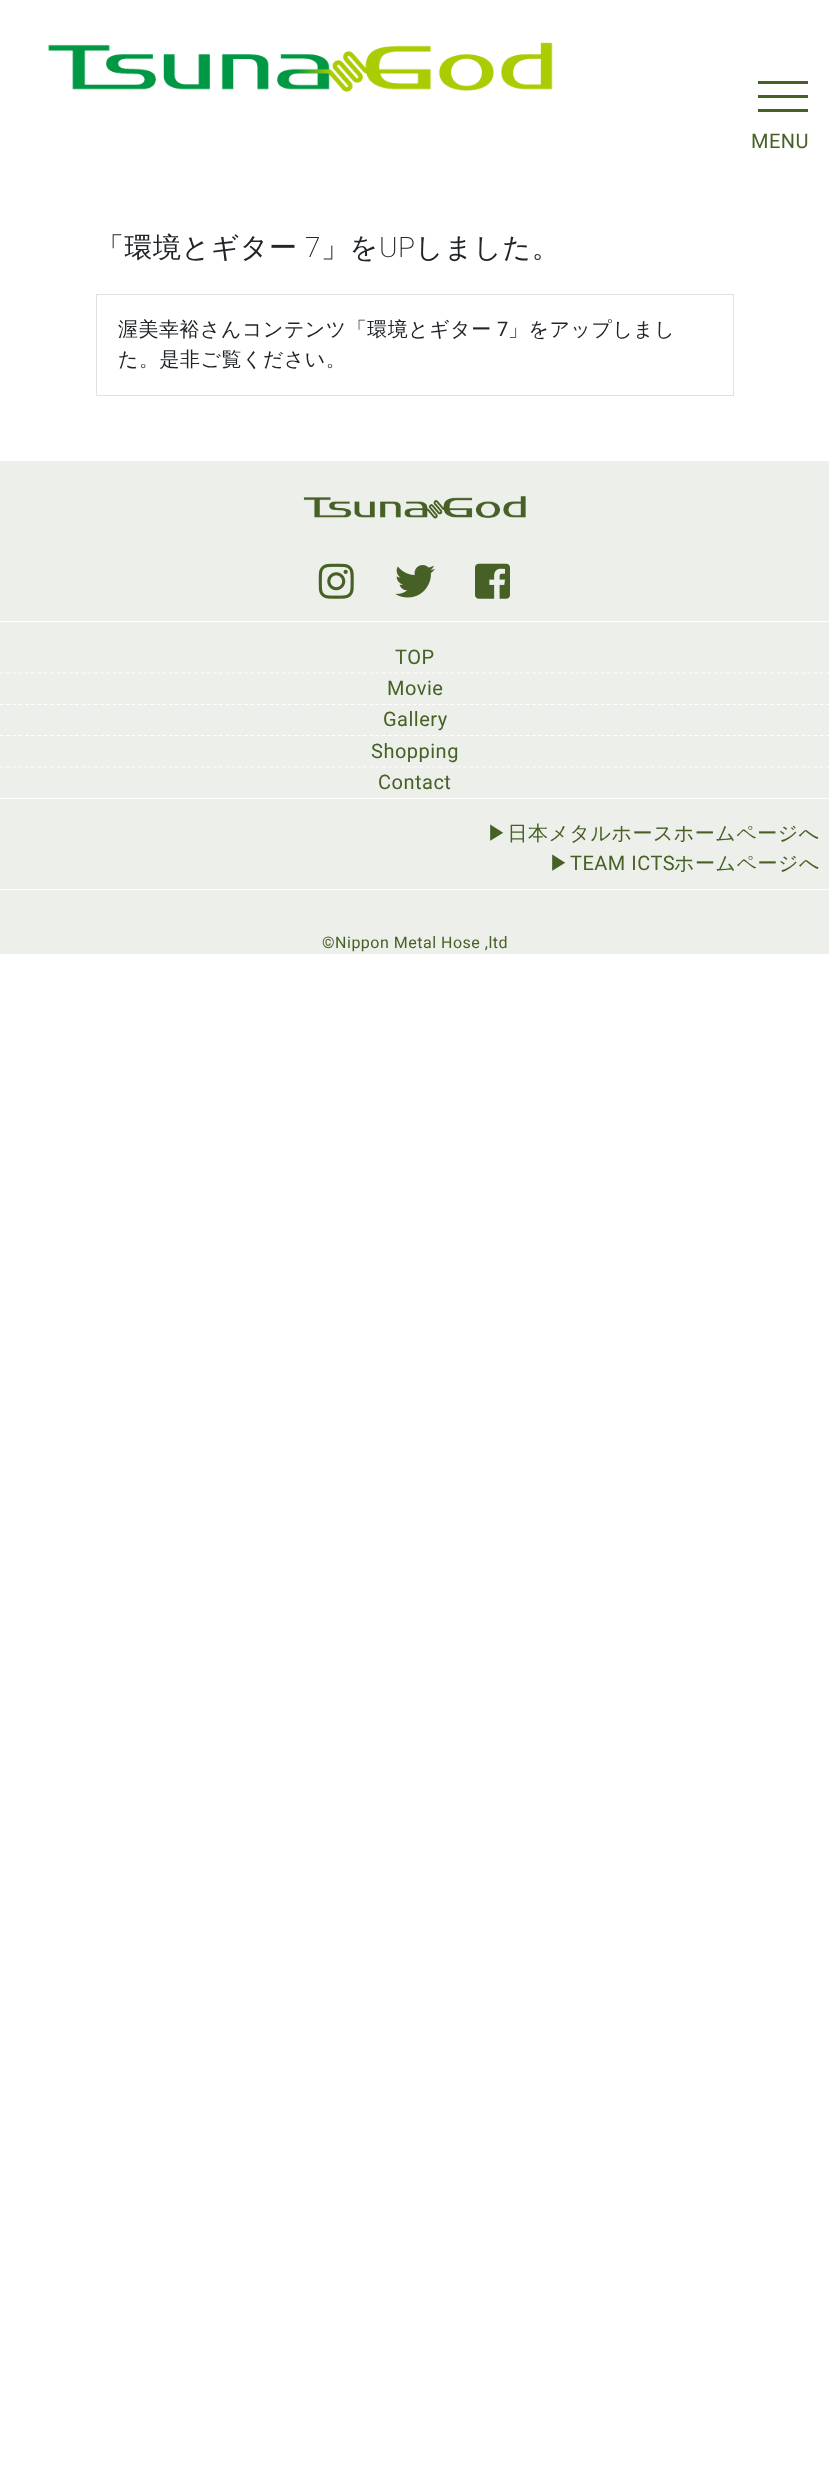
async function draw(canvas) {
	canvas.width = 829;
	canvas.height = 2491;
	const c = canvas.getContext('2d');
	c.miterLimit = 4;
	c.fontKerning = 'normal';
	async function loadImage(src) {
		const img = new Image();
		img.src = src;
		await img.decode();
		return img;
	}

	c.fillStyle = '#fff';
	c.fillRect(0, 0, 829, 2491);
	c.drawImage(await loadImage('img1.png'), 48, 42, 505, 50);
	for (const [x, y, w, h, color] of [
		[758, 81, 50, 3, '#466025'],
		[758, 95, 50, 3, '#466025'],
		[758, 109, 50, 3, '#466025'],
	]) {
		c.fillStyle = color;
		c.fillRect(x, y, w, h);
	}
	c.letterSpacing = '0.5px';
	c.font = '20px Roboto';
	c.fillText('MENU', 751, 148);
	c.font = '500 28px WenQuanYi Zen Hei';
	c.fillStyle = '#212529';
	c.fillText('「環境とギター', 96, 257);
	c.font = '200 28px Roboto';
	c.fillText('7', 305, 257);
	c.font = '500 28px WenQuanYi Zen Hei';
	c.fillText('」を', 321, 257);
	c.font = '200 28px Roboto';
	c.fillText('UP', 379, 257);
	c.font = '500 28px WenQuanYi Zen Hei';
	c.fillText('しました。', 415, 257);
	c.strokeStyle = '#dee2e6';
	c.strokeRect(96.5, 294.5, 637, 101);
	c.font = '500 20px WenQuanYi Zen Hei';
	c.fillText('渥美幸裕さんコンテンツ「環境とギター', 118, 336);
	c.font = '20px Roboto';
	c.fillText('7', 497, 336);
	c.font = '500 20px WenQuanYi Zen Hei';
	c.fillText('」をアップしまし', 508, 336);
	c.fillText('た。是非ご覧ください。', 118, 366);
	c.fillStyle = '#edefea';
	c.fillRect(0, 461, 829, 493);
	c.drawImage(await loadImage('img2.png'), 303, 496, 223, 23);
	c.fillStyle = '#fff';
	c.fillRect(0, 621, 829, 1);
	c.drawImage(await loadImage('img3.png'), 318, 563, 36, 36);
	c.drawImage(await loadImage('img4.png'), 395, 565, 40, 33);
	c.drawImage(await loadImage('img5.png'), 475, 563, 35, 36);
	c.fillRect(0, 798, 829, 1);
	c.beginPath();
	c.moveTo(0, 673);
	c.lineTo(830, 673);
	c.strokeStyle = '#fff';
	c.lineWidth = 1.2;
	c.setLineDash([3.75, 2.51]);
	c.stroke();
	c.font = '20px Roboto';
	c.fillStyle = '#466025';
	c.fillText('TOP', 395, 664);
	c.beginPath();
	c.moveTo(0, 704.5);
	c.lineTo(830, 704.5);
	c.stroke();
	c.fillText('Movie', 387, 695);
	c.beginPath();
	c.moveTo(0, 735.5);
	c.lineTo(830, 735.5);
	c.stroke();
	c.fillText('Gallery', 383, 726);
	c.beginPath();
	c.moveTo(0, 767);
	c.lineTo(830, 767);
	c.stroke();
	c.fillText('Shopping', 371, 758);
	c.fillText('Contact', 378, 789);
	c.fillStyle = '#fff';
	c.fillRect(0, 889, 829, 1);
	c.font = '500 20px WenQuanYi Zen Hei';
	c.fillStyle = '#466025';
	c.fillText('▶︎日本メタルホースホームページへ', 487, 840);
	c.fillText('▶︎', 549, 870);
	c.font = '20px Roboto';
	c.fillText('TEAM ICTS', 570, 870);
	c.font = '500 20px WenQuanYi Zen Hei';
	c.fillText('ホームページへ', 674, 870);
	c.font = '16px Roboto';
	c.fillText('©Nippon Metal Hose ,ltd', 322, 948);
}

draw(document.querySelector('canvas'));
